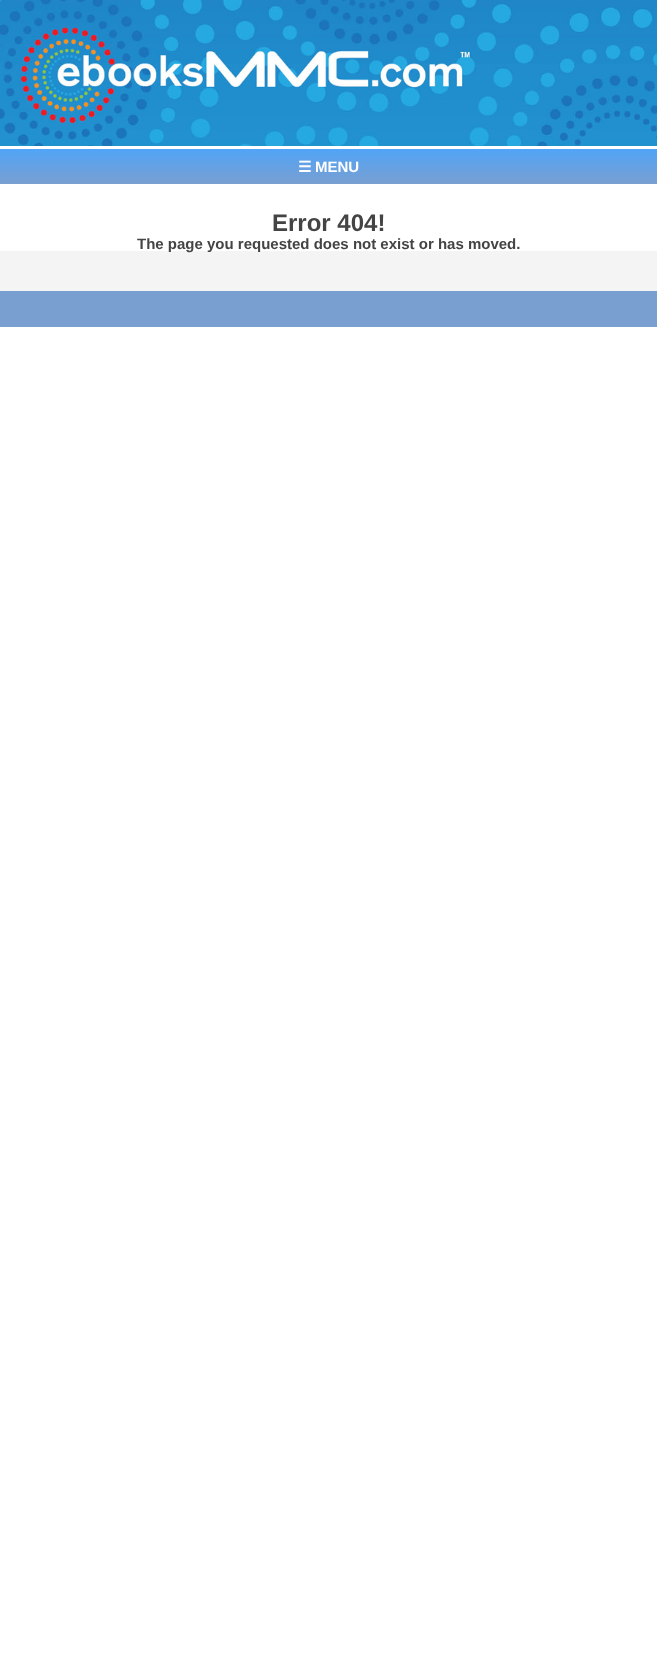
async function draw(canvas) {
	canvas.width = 657;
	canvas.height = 1677;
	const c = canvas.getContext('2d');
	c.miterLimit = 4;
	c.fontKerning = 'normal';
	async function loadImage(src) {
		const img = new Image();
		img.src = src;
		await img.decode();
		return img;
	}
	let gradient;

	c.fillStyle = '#fff';
	c.fillRect(0, 0, 657, 1677);
	c.drawImage(await loadImage('img1.png'), 0, 0, 657, 146);
	gradient = c.createLinearGradient(0, 184, 0, 149);
	gradient.addColorStop(0, '#799fd1');
	gradient.addColorStop(1, '#51a4f7');
	c.fillStyle = gradient;
	c.fillRect(0, 149, 657, 35);
	c.font = 'bold 15px DejaVu Sans';
	c.fillStyle = '#fff';
	c.fillText('☰', 298, 172);
	c.font = 'bold 15px Liberation Sans';
	c.fillText('MENU', 315, 172);
	c.font = 'bold 24px Liberation Sans';
	c.fillStyle = '#444';
	c.fillText('Error 404!', 272, 231);
	c.fillStyle = '#f4f4f4';
	c.fillRect(0, 251, 657, 40);
	c.font = 'bold 15px Liberation Sans';
	c.fillStyle = '#444';
	c.fillText('The page you requested does not exist or has moved.', 137, 249);
	c.fillStyle = '#799fd1';
	c.fillRect(0, 291, 657, 36);
}

draw(document.querySelector('canvas'));
